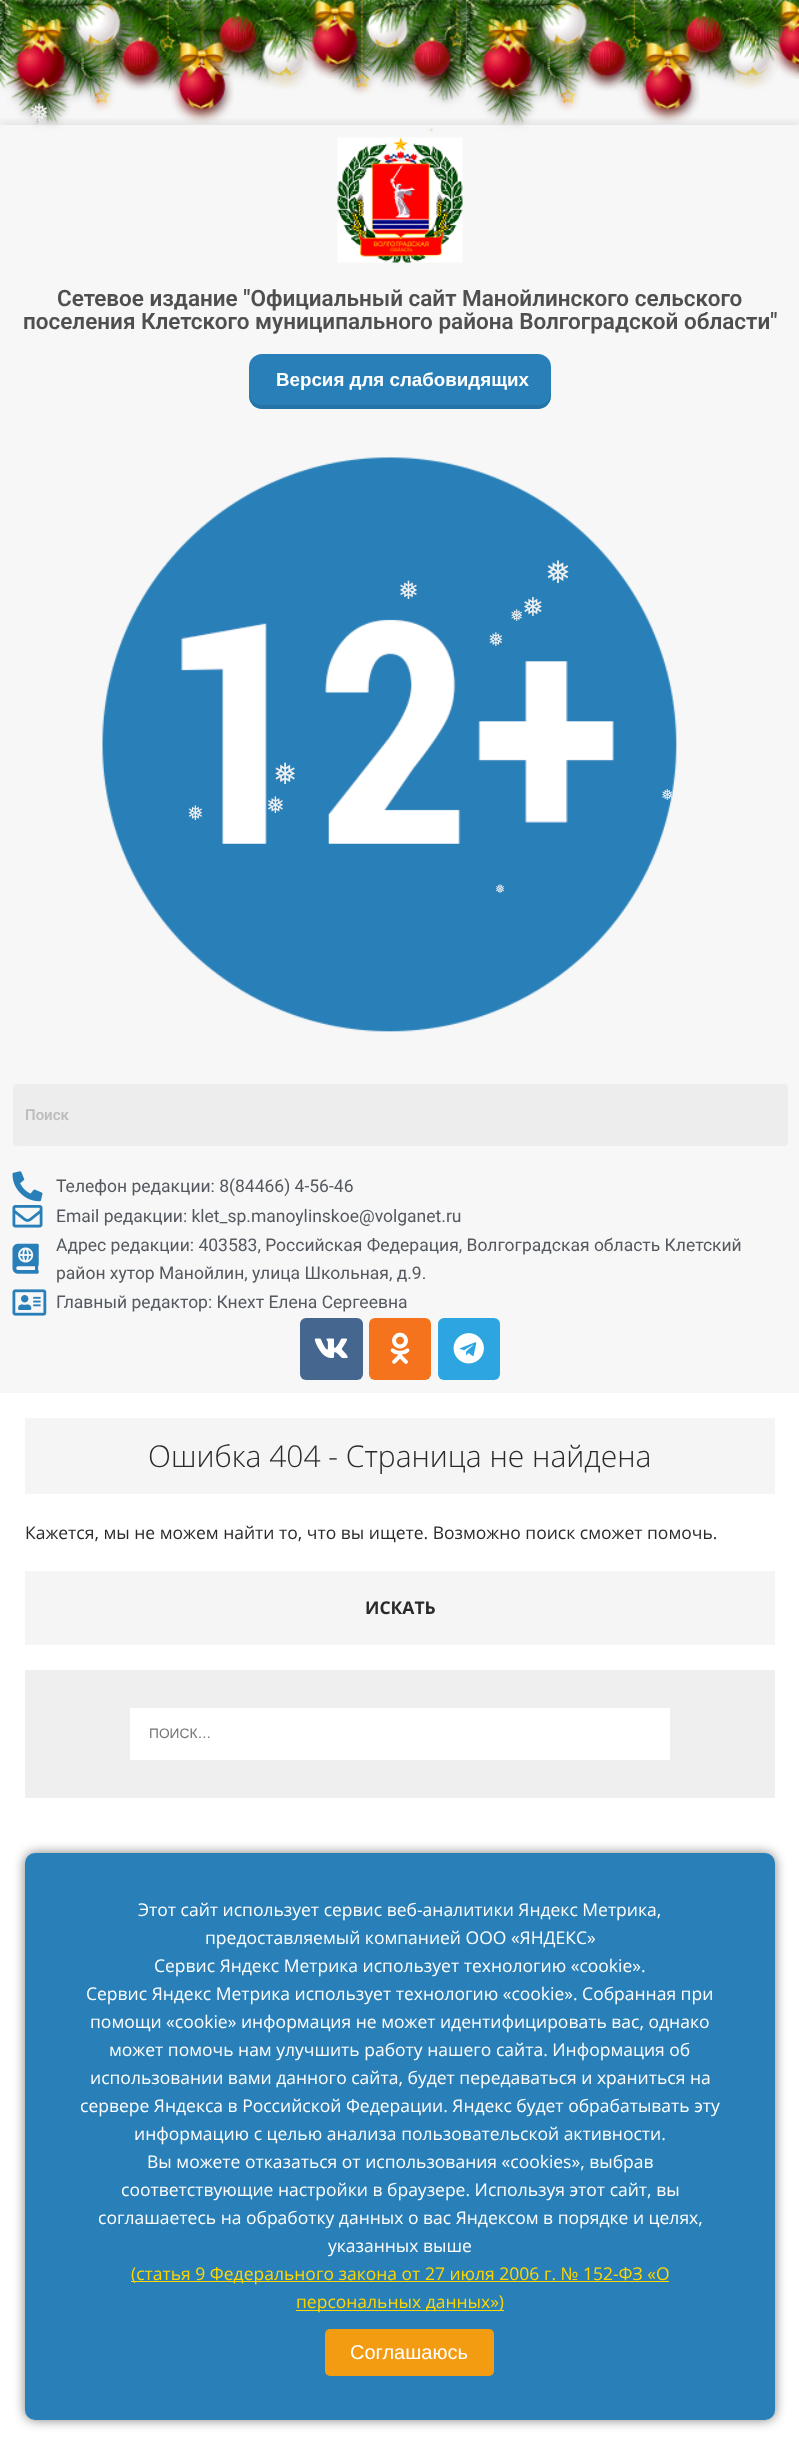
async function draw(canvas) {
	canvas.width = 799;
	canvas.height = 2444;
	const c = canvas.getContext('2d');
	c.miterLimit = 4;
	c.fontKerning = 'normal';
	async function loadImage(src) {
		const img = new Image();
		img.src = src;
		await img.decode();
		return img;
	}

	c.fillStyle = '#f7f7f7';
	c.fillRect(0, 0, 799, 2444);
	c.save();
	c.beginPath();
	c.rect(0, 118, 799, 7);
	c.clip();
	c.fillStyle = '#3232322b';
	c.filter = 'blur(6px)';
	c.beginPath();
	c.rect(0, 125, 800, 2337);
	c.fill();
	c.filter = 'none';
	c.restore();
	c.drawImage(await loadImage('img1.png'), 0, 0, 799, 132);
	c.drawImage(await loadImage('img3.png'), 8, 0, 65, 102);
	c.drawImage(await loadImage('img2.png'), 0, 0, 32, 89);
	c.drawImage(await loadImage('img5.png'), 67, 0, 62, 58);
	c.drawImage(await loadImage('img4.png'), 31, 0, 76, 33);
	c.drawImage(await loadImage('img6.png'), 171, 0, 63, 124);
	c.drawImage(await loadImage('img7.png'), 212, 0, 51, 67);
	c.drawImage(await loadImage('img13.png'), 255, 7, 56, 83);
	c.drawImage(await loadImage('img8.png'), 221, 0, 36, 38);
	c.drawImage(await loadImage('img10.png'), 304, 0, 61, 79);
	c.drawImage(await loadImage('img9.png'), 256, 0, 64, 63);
	c.drawImage(await loadImage('img11.png'), 359, 0, 57, 61);
	c.drawImage(await loadImage('img12.png'), 115, 11, 51, 80);
	c.drawImage(await loadImage('img16.png'), 406, 12, 52, 79);
	c.drawImage(await loadImage('img14.png'), 361, 0, 98, 35);
	c.drawImage(await loadImage('img15.png'), 458, 0, 9, 86);
	c.drawImage(await loadImage('img18.png'), 474, 0, 65, 102);
	c.drawImage(await loadImage('img17.png'), 466, 0, 33, 89);
	c.drawImage(await loadImage('img20.png'), 534, 0, 61, 58);
	c.drawImage(await loadImage('img19.png'), 497, 0, 77, 33);
	c.drawImage(await loadImage('img21.png'), 637, 0, 63, 124);
	c.drawImage(await loadImage('img22.png'), 678, 0, 51, 67);
	c.drawImage(await loadImage('img26.png'), 722, 7, 56, 83);
	c.drawImage(await loadImage('img23.png'), 687, 0, 36, 38);
	c.drawImage(await loadImage('img27.png'), 771, 0, 28, 79);
	c.drawImage(await loadImage('img24.png'), 722, 0, 63, 63);
	c.drawImage(await loadImage('img25.png'), 581, 11, 51, 80);
	c.font = '24px DejaVu Sans';
	c.fillStyle = '#efefef';
	c.fillText('❅', 29, 121);
	c.drawImage(await loadImage('img29.png'), 102, 457, 575, 575);
	c.font = '31px DejaVu Sans';
	c.fillText('❅', 545, 583);
	c.font = '25px DejaVu Sans';
	c.fillText('❅', 398, 599);
	c.font = '16px DejaVu Sans';
	c.fillText('❅', 510, 621);
	c.font = '26px DejaVu Sans';
	c.fillText('❅', 522, 616);
	c.font = '18.75px DejaVu Sans';
	c.fillText('❅', 488, 646);
	c.font = '29px DejaVu Sans';
	c.fillText('❅', 273, 784);
	c.font = '15px DejaVu Sans';
	c.fillText('❅', 661, 800);
	c.font = '20px DejaVu Sans';
	c.fillText('❅', 187, 820);
	c.font = '22.5px DejaVu Sans';
	c.fillText('❅', 266, 813);
	c.font = '12px DejaVu Sans';
	c.fillText('❅', 495, 893);
	c.drawImage(await loadImage('img28.png'), 337, 137, 126, 126);
	c.font = '600 22.5px Roboto';
	c.fillStyle = '#504f4f';
	c.fillText('Сетевое издание "Официальный сайт Манойлинского сельского', 57, 306);
	c.fillText('поселения Клетского муниципального района Волгоградской области"', 23, 329);
	c.fillStyle = '#2980b9';
	c.beginPath();
	c.roundRect(249, 354, 302, 55, 13);
	c.fill();
	c.fillStyle = '#0000001a';
	c.beginPath();
	c.moveTo(249, 392);
	c.lineTo(249, 396);
	c.bezierCurveTo(249, 403, 255, 409, 262, 409);
	c.lineTo(538, 409);
	c.bezierCurveTo(545, 409, 551, 403, 551, 396);
	c.lineTo(551, 392);
	c.bezierCurveTo(551, 399, 546, 405, 539, 405);
	c.lineTo(261, 405);
	c.bezierCurveTo(254, 405, 249, 399, 249, 392);
	c.closePath();
	c.fill();
	c.font = 'bold 18.75px Liberation Sans';
	c.fillStyle = '#fff';
	c.fillText('Версия для слабовидящих', 276, 386);
	c.fillStyle = '#ededed';
	c.beginPath();
	c.roundRect(13, 1084, 775, 62, 4);
	c.fill();
	c.font = '600 15px Roboto';
	c.fillStyle = '#bdbdbd';
	c.fillText('Поиск', 25, 1120);
	c.drawImage(await loadImage('img30.png'), 12, 1171, 31, 31);
	c.font = '17.5px Roboto';
	c.fillStyle = '#54595f';
	c.fillText('Телефон редакции: 8(84466) 4-56-46', 56, 1192);
	c.drawImage(await loadImage('img31.png'), 12, 1205, 31, 23);
	c.fillText('Email редакции: klet_sp.manoylinskoe@volganet.ru', 56, 1222);
	c.drawImage(await loadImage('img32.png'), 12, 1243, 27, 31);
	c.fillText('Адрес редакции: 403583, Российская Федерация, Волгоградская область Клетский', 56, 1251);
	c.fillText('район хутор Манойлин, улица Школьная, д.9.', 56, 1279);
	c.drawImage(await loadImage('img33.png'), 12, 1289, 35, 27);
	c.fillText('Главный редактор: Кнехт Елена Сергеевна', 56, 1308);
	c.fillStyle = '#45668e';
	c.beginPath();
	c.roundRect(300, 1318, 63, 62, 6);
	c.fill();
	c.drawImage(await loadImage('img34.png'), 314, 1338, 34, 21);
	c.fillStyle = '#f4731c';
	c.beginPath();
	c.roundRect(369, 1318, 62, 62, 6);
	c.fill();
	c.drawImage(await loadImage('img35.png'), 390, 1332, 20, 32);
	c.fillStyle = '#2ca5e0';
	c.beginPath();
	c.roundRect(438, 1318, 62, 62, 6);
	c.fill();
	c.drawImage(await loadImage('img36.png'), 453, 1333, 31, 31);
	c.fillStyle = '#fff';
	c.fillRect(0, 1393, 799, 1051);
	c.fillStyle = '#f5f5f5';
	c.fillRect(25, 1418, 750, 76);
	c.font = '300 30px Open Sans';
	c.fillStyle = '#2a2a2a';
	c.fillText('Ошибка 404 - Страница не найдена', 148, 1467);
	c.font = '17.5px Open Sans';
	c.fillText('Кажется, мы не можем найти то, что вы ищете. Возможно поиск сможет помочь.', 25, 1539);
	c.fillStyle = '#f5f5f5';
	c.fillRect(25, 1571, 750, 74);
	c.font = 'bold 17.5px Open Sans';
	c.fillStyle = '#2a2a2a';
	c.fillText('ИСКАТЬ', 365, 1614);
	c.fillStyle = '#efefef';
	c.fillRect(25, 1670, 750, 128);
	c.fillStyle = '#fff';
	c.fillRect(130, 1708, 540, 52);
	c.font = '13.75px Liberation Sans';
	c.fillStyle = '#757575';
	c.fillText('ПОИСК…', 149, 1738);
	c.fillStyle = '#00000080';
	c.filter = 'blur(6px)';
	c.beginPath();
	c.roundRect(25, 1853, 750, 567, 10);
	c.fill();
	c.filter = 'none';
	c.fillStyle = '#2980b9';
	c.beginPath();
	c.roundRect(25, 1853, 750, 567, 10);
	c.fill();
	c.font = '17.5px Open Sans';
	c.fillStyle = '#fff';
	for (const [text, x, y] of [
		['Этот сайт использует сервис веб-аналитики Яндекс Метрика,', 138, 1916],
		['предоставляемый компанией ООО «ЯНДЕКС»', 205, 1944],
		['Сервис Яндекс Метрика использует технологию «cookie».', 154, 1972],
		['Сервис Яндекс Метрика использует технологию «cookie». Собранная при', 86, 2000],
		['помощи «cookie» информация не может идентифицировать вас, однако', 90, 2028],
		['может помочь нам улучшить работу нашего сайта. Информация об', 109, 2056],
		['использовании вами данного сайта, будет передаваться и храниться на', 90, 2084],
		['сервере Яндекса в Российской Федерации. Яндекс будет обрабатывать эту', 80, 2112],
		['информацию с целью анализа пользовательской активности.', 134, 2140],
		['Вы можете отказаться от использования «cookies», выбрав', 147, 2168],
		['соответствующие настройки в браузере. Используя этот сайт, вы', 121, 2196],
		['соглашаетесь на обработку данных о вас Яндексом в порядке и целях,', 98, 2224],
		['указанных выше', 328, 2252],
	]) {
		c.fillText(text, x, y);
	}
	c.fillStyle = '#ffd700';
	c.fillRect(131, 2281, 538, 1);
	c.fillText('(статья 9 Федерального закона от 27 июля 2006 г. № 152-ФЗ «О', 131, 2280);
	c.fillRect(296, 2310, 208, 1);
	c.fillText('персональных данных»)', 296, 2308);
	c.fillStyle = '#f39c12';
	c.beginPath();
	c.roundRect(325, 2329, 169, 47, 5);
	c.fill();
	c.font = '20px Liberation Sans';
	c.fillStyle = '#fff';
	c.fillText('Соглашаюсь', 350, 2359);
}

draw(document.querySelector('canvas'));
